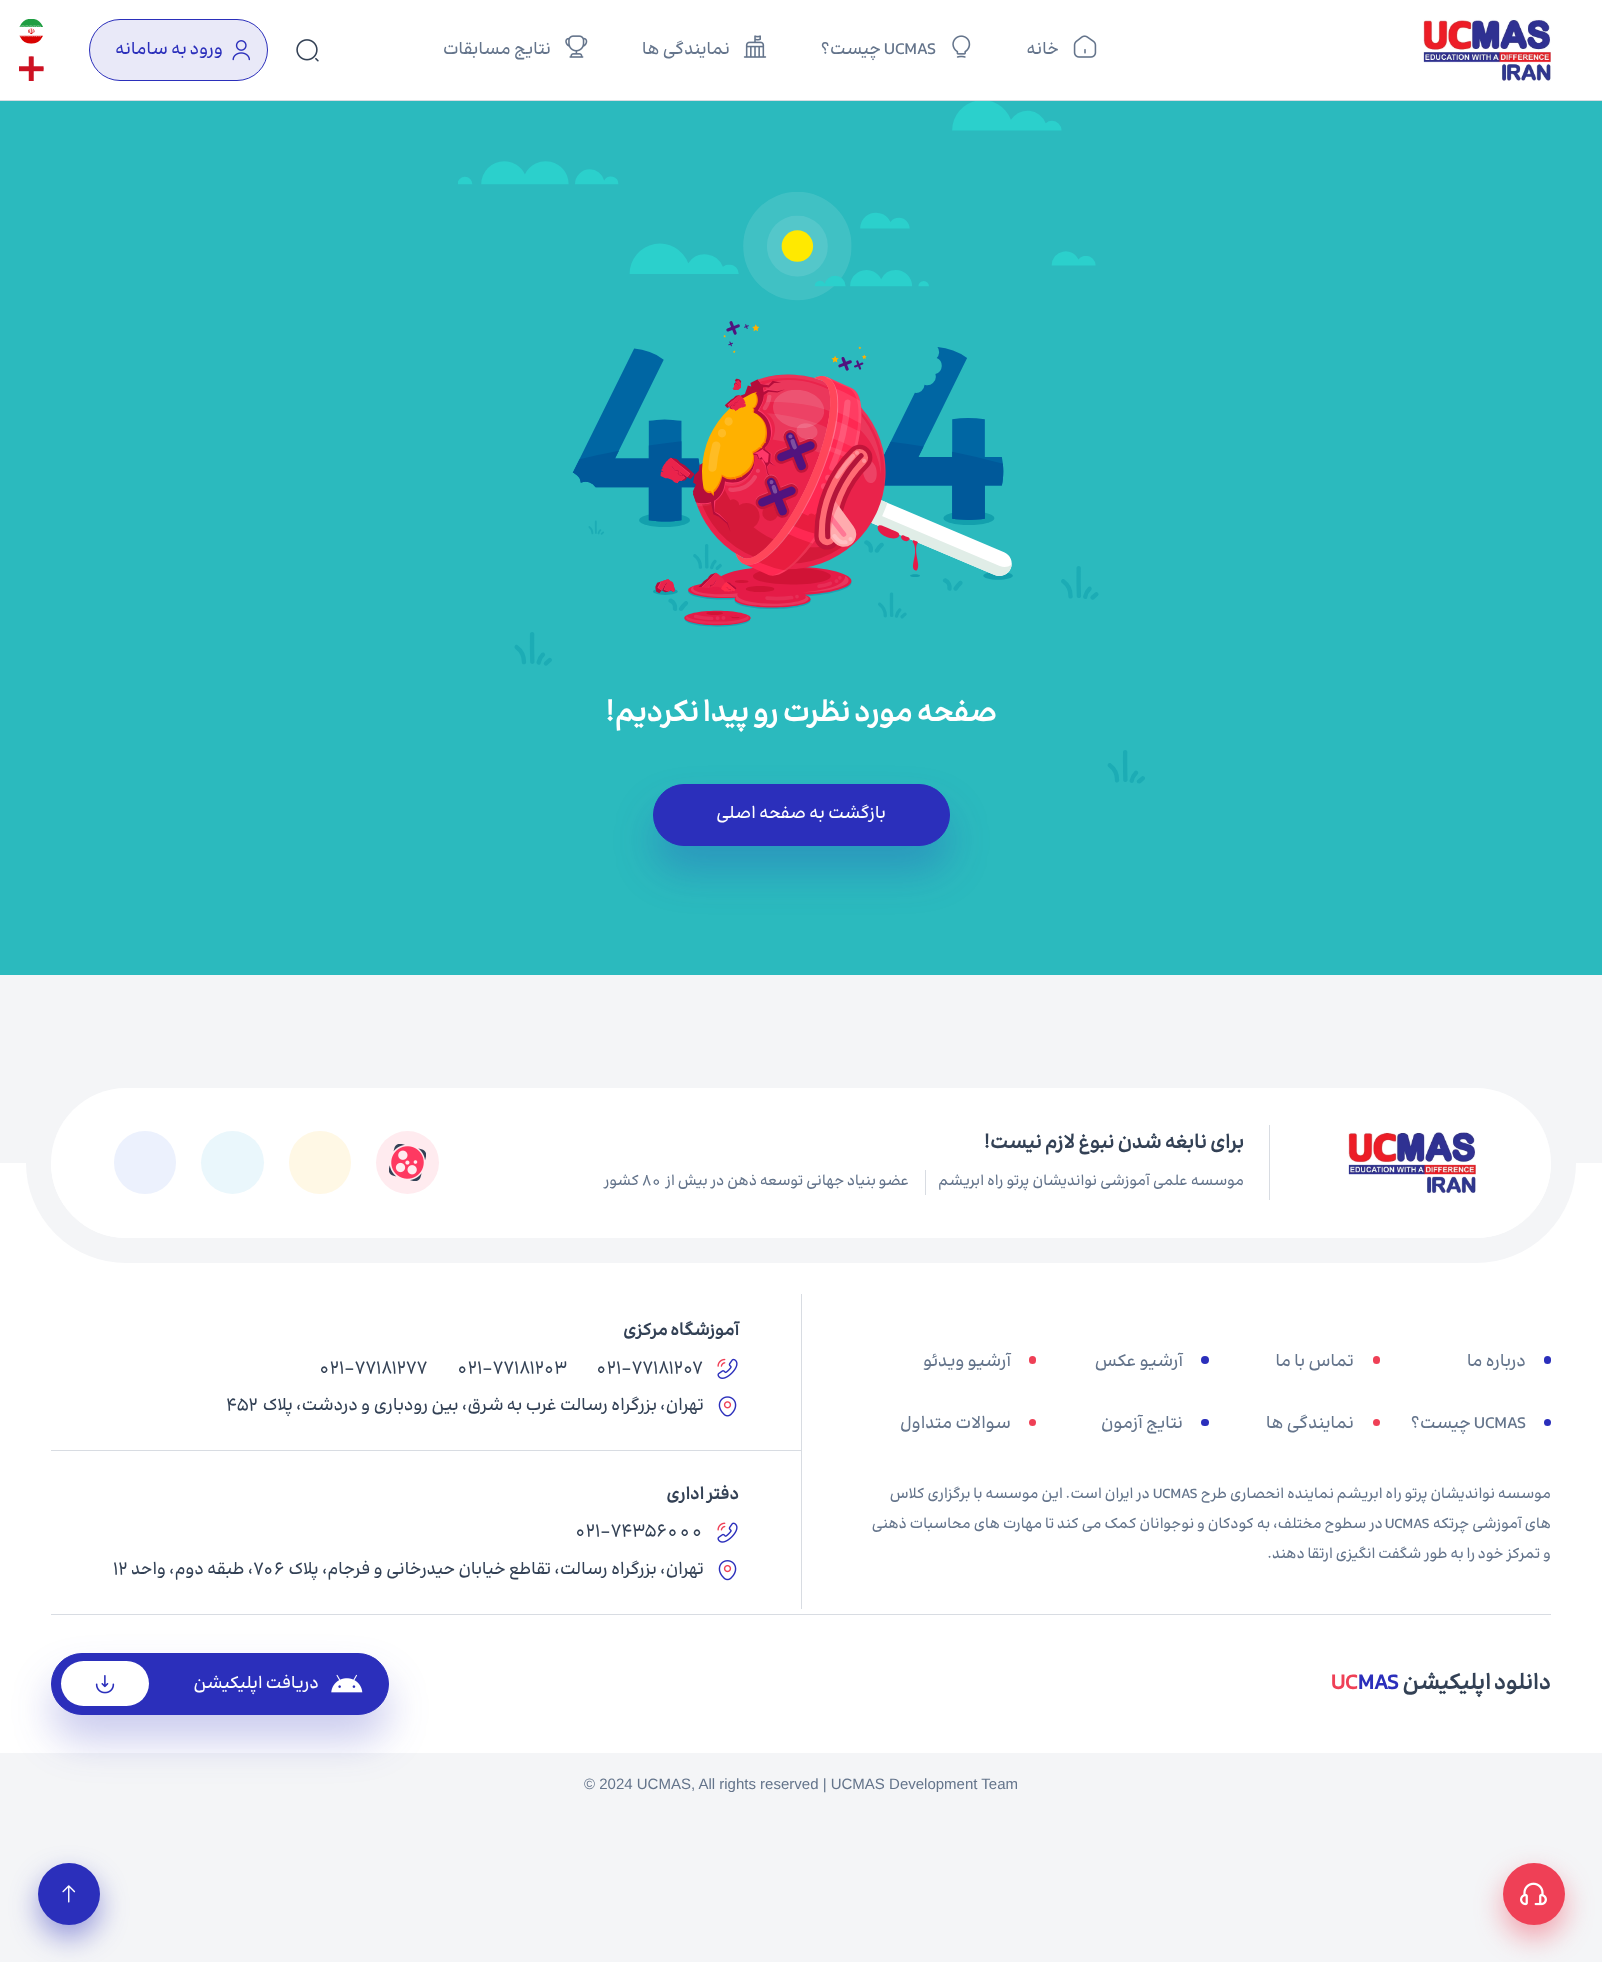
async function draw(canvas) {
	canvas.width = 1602;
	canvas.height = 1962;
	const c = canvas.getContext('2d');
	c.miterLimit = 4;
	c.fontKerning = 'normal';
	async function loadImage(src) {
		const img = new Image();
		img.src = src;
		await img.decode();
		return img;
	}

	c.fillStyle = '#f4f5f7';
	c.fillRect(0, 0, 1602, 1962);
	c.fillStyle = '#2bbabe';
	c.fillRect(0, 100, 1602, 875);
	c.drawImage(await loadImage('img10.png'), 458, 100, 687, 684);
	c.fillStyle = '#d8dce2';
	c.filter = 'blur(0.5px)';
	c.beginPath();
	c.rect(0, 1, 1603, 100);
	c.fill();
	c.filter = 'none';
	c.fillStyle = '#fff';
	c.fillRect(0, 0, 1602, 100);
	c.drawImage(await loadImage('img1.png'), 1423, 19, 128, 62);
	c.drawImage(await loadImage('img2.png'), 1073, 35, 24, 23);
	c.direction = 'rtl';
	c.font = '17.5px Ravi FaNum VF';
	c.fillStyle = '#64748b';
	c.fillText('خانه', 1059, 54);
	c.drawImage(await loadImage('img3.png'), 952, 35, 19, 23);
	c.direction = 'ltr';
	c.fillText('UCMAS', 884, 54);
	c.direction = 'rtl';
	c.fillText('چیست؟', 881, 54);
	c.drawImage(await loadImage('img4.png'), 743, 35, 24, 23);
	c.fillText('نمایندگی ها', 730, 54);
	c.drawImage(await loadImage('img5.png'), 565, 35, 23, 23);
	c.fillText('نتایج مسابقات', 551, 54);
	c.drawImage(await loadImage('img6.png'), 296, 39, 23, 23);
	c.drawImage(await loadImage('img7.png'), 19, 19, 24, 25);
	c.drawImage(await loadImage('img8.png'), 19, 56, 25, 25);
	c.fillStyle = '#e9e9f8';
	c.beginPath();
	c.roundRect(89.5, 19.5, 178, 61, 30.5);
	c.fill();
	c.strokeStyle = '#2b2fbb';
	c.stroke();
	c.drawImage(await loadImage('img9.png'), 232, 40, 18, 21);
	c.fillStyle = '#2b2fbb';
	c.fillText('ورود به سامانه', 223, 54);
	c.wordSpacing = '-1.5px';
	c.font = 'bold 30px Ravi FaNum VF';
	c.fillStyle = '#fff';
	c.fillText('صفحه مورد نظرت رو پیدا نکردیم!', 997, 721);
	c.fillStyle = '#2b2fbb40';
	c.filter = 'blur(20px)';
	c.beginPath();
	c.roundRect(653, 809, 297, 62, 31);
	c.fill();
	c.filter = 'none';
	c.fillStyle = '#2b2fbb';
	c.beginPath();
	c.roundRect(653.5, 784.5, 296, 61, 30.5);
	c.fill();
	c.stroke();
	c.wordSpacing = '0px';
	c.font = '17.5px Ravi FaNum VF';
	c.fillStyle = '#fff';
	c.fillText('بازگشت به صفحه اصلی', 886, 818);
	c.fillRect(0, 1163, 1602, 590);
	c.beginPath();
	c.roundRect(38.5, 1075.5, 1525, 175, 87.5);
	c.strokeStyle = '#f4f5f7';
	c.lineWidth = 25;
	c.stroke();
	c.beginPath();
	c.roundRect(51, 1088, 1500, 150, 75);
	c.fill();
	c.drawImage(await loadImage('img11.png'), 1348, 1132, 128, 62);
	c.fillStyle = '#d8dce2';
	c.fillRect(1269, 1125, 1, 75);
	c.wordSpacing = '-0.5px';
	c.font = 'bold 20px Ravi FaNum VF';
	c.fillStyle = '#334155';
	c.fillText('برای نابغه شدن نبوغ لازم نیست!', 1244, 1148);
	c.fillStyle = '#d8dce2';
	c.fillRect(925, 1170, 1, 25);
	c.wordSpacing = '0.25px';
	c.font = '15px Ravi FaNum VF';
	c.fillStyle = '#64748b';
	c.fillText('موسسه علمی آموزشی نواندیشان پرتو راه ابریشم', 1244, 1185);
	c.wordSpacing = '0px';
	c.fillText('عضو بنیاد جهانی توسعه ذهن در بیش از', 909, 1185);
	c.direction = 'ltr';
	c.fillText('80', 642, 1185);
	c.direction = 'rtl';
	c.fillText('کشور', 639, 1185);
	c.fillStyle = '#ffebef';
	c.beginPath();
	c.arc(407.5, 1162.5, 31.5, 0, 2 * Math.PI);
	c.fill();
	c.drawImage(await loadImage('img12.png'), 389, 1144, 37, 37);
	c.fillStyle = '#fff8e5';
	c.beginPath();
	c.roundRect(289, 1131, 62, 63, 31);
	c.fill();
	c.fillStyle = '#eaf7fc';
	c.beginPath();
	c.arc(232.5, 1162.5, 31.5, 0, 2 * Math.PI);
	c.fill();
	c.fillStyle = '#ecf1fd';
	c.beginPath();
	c.roundRect(114, 1131, 62, 63, 31);
	c.fill();
	c.fillStyle = '#d8dce2';
	c.fillRect(51, 1614, 1500, 1);
	c.fillRect(801, 1294, 1, 315);
	c.fillStyle = '#2b2fbb';
	c.beginPath();
	c.roundRect(1544, 1356, 7, 8, 3.5);
	c.fill();
	c.font = '17.5px Ravi FaNum VF';
	c.fillStyle = '#64748b';
	c.fillText('درباره ما', 1526, 1366);
	c.fillStyle = '#ef4056';
	c.beginPath();
	c.roundRect(1373, 1356, 7, 8, 3.5);
	c.fill();
	c.fillStyle = '#64748b';
	c.fillText('تماس با ما', 1354, 1366);
	c.fillStyle = '#2b2fbb';
	c.beginPath();
	c.arc(1205, 1360, 4, 0, 2 * Math.PI);
	c.fill();
	c.fillStyle = '#64748b';
	c.fillText('آرشیو عکس', 1183, 1366);
	c.fillStyle = '#ef4056';
	c.beginPath();
	c.roundRect(1029, 1356, 7, 8, 3.5);
	c.fill();
	c.fillStyle = '#64748b';
	c.fillText('آرشیو ویدئو', 1011, 1366);
	c.fillStyle = '#2b2fbb';
	c.beginPath();
	c.arc(1547.5, 1422.5, 3.5, 0, 2 * Math.PI);
	c.fill();
	c.direction = 'ltr';
	c.fillStyle = '#64748b';
	c.fillText('UCMAS', 1474, 1428);
	c.direction = 'rtl';
	c.fillText('چیست؟', 1471, 1428);
	c.fillStyle = '#ef4056';
	c.beginPath();
	c.arc(1376.5, 1422.5, 3.5, 0, 2 * Math.PI);
	c.fill();
	c.fillStyle = '#64748b';
	c.fillText('نمایندگی ها', 1354, 1428);
	c.fillStyle = '#2b2fbb';
	c.beginPath();
	c.roundRect(1201, 1419, 8, 7, 3.5);
	c.fill();
	c.fillStyle = '#64748b';
	c.fillText('نتایج آزمون', 1183, 1428);
	c.fillStyle = '#ef4056';
	c.beginPath();
	c.arc(1032.5, 1422.5, 3.5, 0, 2 * Math.PI);
	c.fill();
	c.fillStyle = '#64748b';
	c.fillText('سوالات متداول', 1011, 1428);
	c.font = '15px Ravi FaNum VF';
	c.fillText('موسسه نواندیشان پرتو راه ابریشم نماینده انحصاری طرح', 1551, 1498);
	c.direction = 'ltr';
	c.fillText('UCMAS', 1153, 1498);
	c.direction = 'rtl';
	c.fillText('در ایران است. این موسسه با برگزاری کلاس', 1150, 1498);
	c.fillText('های آموزشی چرتکه', 1551, 1528);
	c.direction = 'ltr';
	c.fillText('UCMAS', 1385, 1528);
	c.wordSpacing = '0.1px';
	c.direction = 'rtl';
	c.fillText('در سطوح مختلف، به کودکان و نوجوانان کمک می کند تا مهارت های محاسبات ذهنی', 1383, 1528);
	c.wordSpacing = '0px';
	c.fillText('و تمرکز خود را به طور شگفت انگیزی ارتقا دهند.', 1551, 1558);
	c.fillStyle = '#d8dce2';
	c.fillRect(51, 1450, 750, 1);
	c.wordSpacing = '-1px';
	c.font = 'bold 17.5px Ravi FaNum VF';
	c.fillStyle = '#334155';
	c.fillText('آموزشگاه مرکزی', 739, 1335);
	c.drawImage(await loadImage('img13.png'), 717, 1358, 21, 21);
	c.drawImage(await loadImage('img15.png'), 720, 1362, 6, 5);
	c.drawImage(await loadImage('img14.png'), 717, 1358, 9, 9);
	c.wordSpacing = '0px';
	c.direction = 'ltr';
	c.font = '17.5px Ravi FaNum VF';
	for (const [text, x, y] of [
		['021-77181207', 595, 1373],
		['021-77181203', 456, 1373],
		['021-77181277', 318, 1373],
	]) {
		c.fillText(text, x, y);
	}
	c.drawImage(await loadImage('img17.png'), 723, 1401, 9, 8);
	c.drawImage(await loadImage('img16.png'), 718, 1396, 19, 21);
	c.direction = 'rtl';
	c.fillText('تهران، بزرگراه رسالت غرب به شرق، بین رودباری و دردشت، پلاک', 704, 1410);
	c.direction = 'ltr';
	c.fillText('452', 226, 1410);
	c.wordSpacing = '-1px';
	c.direction = 'rtl';
	c.font = 'bold 17.5px Ravi FaNum VF';
	c.fillText('دفتر اداری', 739, 1499);
	c.drawImage(await loadImage('img18.png'), 717, 1522, 21, 21);
	c.drawImage(await loadImage('img20.png'), 720, 1525, 6, 6);
	c.drawImage(await loadImage('img19.png'), 717, 1522, 9, 9);
	c.wordSpacing = '0px';
	c.direction = 'ltr';
	c.font = '17.5px Ravi FaNum VF';
	c.fillText('021-74356000', 574, 1536);
	c.drawImage(await loadImage('img22.png'), 723, 1565, 9, 8);
	c.drawImage(await loadImage('img21.png'), 718, 1560, 19, 21);
	c.wordSpacing = '0.1px';
	c.direction = 'rtl';
	c.fillText('تهران، بزرگراه رسالت، تقاطع خیابان حیدرخانی و فرجام، پلاک', 704, 1574);
	c.wordSpacing = '0px';
	c.direction = 'ltr';
	c.fillText('706', 253, 1574);
	c.direction = 'rtl';
	c.fillText('، طبقه دوم، واحد', 253, 1574);
	c.direction = 'ltr';
	c.fillText('12', 113, 1574);
	c.wordSpacing = '-1px';
	c.direction = 'rtl';
	c.font = 'bold 22.5px Ravi FaNum VF';
	c.fillText('دانلود اپلیکیشن', 1551, 1689);
	c.wordSpacing = '0px';
	c.direction = 'ltr';
	c.fillStyle = '#2b2fbb';
	c.fillText('MAS', 1358, 1689);
	c.fillStyle = '#ef4056';
	c.fillText('UC', 1331, 1689);
	c.fillStyle = '#2b2fbb40';
	c.filter = 'blur(20px)';
	c.beginPath();
	c.roundRect(51, 1678, 338, 62, 31);
	c.fill();
	c.filter = 'none';
	c.fillStyle = '#2b2fbb';
	c.beginPath();
	c.roundRect(51.5, 1653.5, 337, 61, 30.5);
	c.fill();
	c.strokeStyle = '#2b2fbb';
	c.lineWidth = 1;
	c.stroke();
	c.drawImage(await loadImage('img23.png'), 331, 1674, 32, 19);
	c.direction = 'rtl';
	c.font = '17.5px Ravi FaNum VF';
	c.fillStyle = '#fff';
	c.fillText('دریافت اپلیکیشن', 319, 1688);
	c.beginPath();
	c.roundRect(61, 1661, 88, 45, 22.5);
	c.fill();
	c.drawImage(await loadImage('img24.png'), 95, 1675, 20, 19);
	c.direction = 'ltr';
	c.font = '15px Liberation Sans';
	c.fillStyle = '#64748b';
	c.fillText('© 2024 UCMAS, All rights reserved | UCMAS Development Team', 584, 1789);
	c.fillStyle = '#ef405673';
	c.filter = 'blur(14px)';
	c.beginPath();
	c.roundRect(1503, 1875, 62, 63, 31);
	c.fill();
	c.filter = 'none';
	c.fillStyle = '#ef4056';
	c.beginPath();
	c.arc(1534, 1894, 31, 0, 2 * Math.PI);
	c.fill();
	c.drawImage(await loadImage('img25.png'), 1520, 1882, 27, 24);
	c.fillStyle = '#2b2fbb73';
	c.filter = 'blur(14px)';
	c.beginPath();
	c.roundRect(38, 1875, 62, 63, 31);
	c.fill();
	c.filter = 'none';
	c.fillStyle = '#2b2fbb';
	c.beginPath();
	c.arc(69, 1894, 31, 0, 2 * Math.PI);
	c.fill();
	c.drawImage(await loadImage('img26.png'), 62, 1885, 14, 18);
}

draw(document.querySelector('canvas'));
